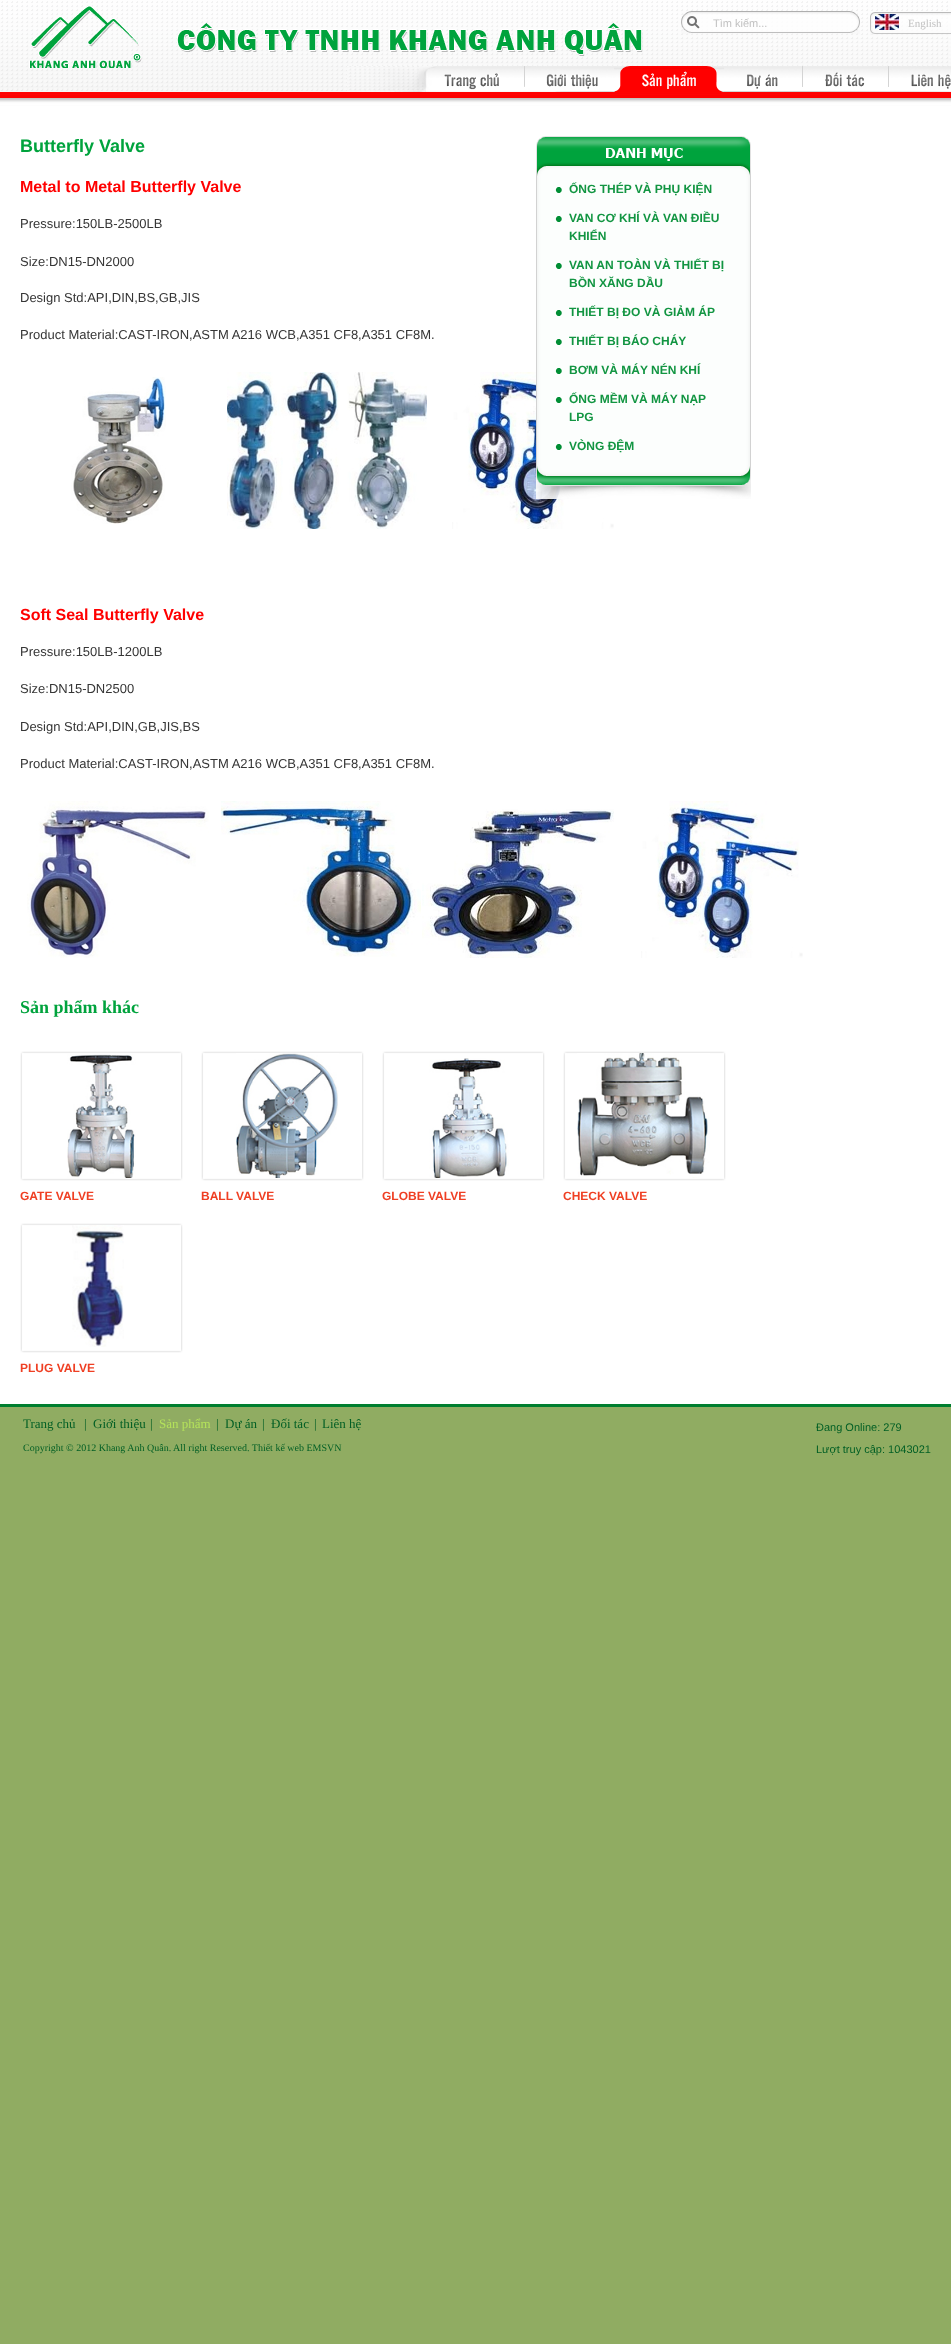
async function draw(canvas) {
	canvas.width = 951;
	canvas.height = 2344;
	const c = canvas.getContext('2d');
	c.miterLimit = 4;
	c.fontKerning = 'normal';
	async function loadImage(src) {
		const img = new Image();
		img.src = src;
		await img.decode();
		return img;
	}

	c.fillStyle = '#90ac62';
	c.fillRect(0, 0, 951, 2344);
	c.drawImage(await loadImage('img1.png'), 0, 0, 951, 106);
	c.drawImage(await loadImage('img2.png'), 0, 92, 951, 13);
	c.drawImage(await loadImage('img3.png'), 29, 6, 113, 62);
	c.drawImage(await loadImage('img4.png'), 177, 23, 466, 33);
	c.drawImage(await loadImage('img5.png'), 681, 11, 179, 23);
	c.font = '11px Liberation Sans';
	c.fillStyle = '#c1c1c1';
	c.fillText('Tìm kiếm...', 713, 27);
	c.drawImage(await loadImage('img6.png'), 870, 12, 81, 23);
	c.drawImage(await loadImage('img7.png'), 875, 14, 24, 16);
	c.font = '11px Liberation Serif';
	c.fillText('English', 908, 27);
	c.drawImage(await loadImage('img8.png'), 347, 66, 604, 26);
	c.drawImage(await loadImage('img9.png'), 614, 66, 110, 26);
	c.fillStyle = '#fff';
	c.fillRect(0, 106, 951, 1298);
	c.font = 'bold 18px Liberation Sans';
	c.fillStyle = '#00a33d';
	c.fillText('Butterfly Valve', 20, 152);
	c.font = 'bold 16px Liberation Sans';
	c.fillStyle = '#f00';
	c.fillText('Metal to Metal Butterfly Valve', 20, 192);
	c.font = '13px Liberation Sans';
	c.fillStyle = '#363636';
	for (const [text, x, y] of [
		['Pressure:150LB-2500LB', 20, 228],
		['Size:DN15-DN2000', 20, 266],
		['Design Std:API,DIN,BS,GB,JIS', 20, 302],
		['Product Material:CAST-IRON,ASTM A216 WCB,A351 CF8,A351 CF8M.', 20, 339],
	]) {
		c.fillText(text, x, y);
	}
	c.drawImage(await loadImage('img10.png'), 71, 377, 95, 147);
	c.drawImage(await loadImage('img11.png'), 227, 372, 200, 157);
	c.drawImage(await loadImage('img12.png'), 452, 372, 162, 157);
	c.font = 'bold 16px Liberation Sans';
	c.fillStyle = '#f00';
	c.fillText('Soft Seal Butterfly Valve', 20, 620);
	c.font = '13px Liberation Sans';
	c.fillStyle = '#363636';
	for (const [text, x, y] of [
		['Pressure:150LB-1200LB', 20, 656],
		['Size:DN15-DN2500', 20, 693],
		['Design Std:API,DIN,GB,JIS,BS', 20, 731],
		['Product Material:CAST-IRON,ASTM A216 WCB,A351 CF8,A351 CF8M.', 20, 768],
	]) {
		c.fillText(text, x, y);
	}
	c.drawImage(await loadImage('img13.png'), 27, 801, 182, 157);
	c.drawImage(await loadImage('img14.png'), 221, 801, 200, 156);
	c.drawImage(await loadImage('img15.png'), 422, 809, 192, 149);
	c.drawImage(await loadImage('img12.png'), 641, 801, 162, 157);
	c.font = 'bold 18px Liberation Serif';
	c.fillStyle = '#00a33d';
	c.fillText('Sản phẩm khác', 20, 1013);
	c.drawImage(await loadImage('img16.png'), 20, 1051, 163, 130);
	c.drawImage(await loadImage('img17.png'), 67, 1054, 69, 124);
	c.font = 'bold 12px Liberation Sans';
	c.fillStyle = '#ef3f23';
	c.fillText('GATE VALVE', 20, 1200);
	c.drawImage(await loadImage('img16.png'), 201, 1051, 163, 130);
	c.drawImage(await loadImage('img18.png'), 236, 1053, 103, 125);
	c.fillText('BALL VALVE', 201, 1200);
	c.drawImage(await loadImage('img16.png'), 382, 1051, 163, 130);
	c.drawImage(await loadImage('img19.png'), 429, 1058, 80, 120);
	c.fillText('GLOBE VALVE', 382, 1200);
	c.drawImage(await loadImage('img16.png'), 563, 1051, 163, 130);
	c.drawImage(await loadImage('img20.png'), 577, 1053, 133, 125);
	c.fillText('CHECK VALVE', 563, 1200);
	c.drawImage(await loadImage('img16.png'), 20, 1223, 163, 130);
	c.drawImage(await loadImage('img21.png'), 72, 1225, 52, 122);
	c.fillText('PLUG VALVE', 20, 1372);
	c.drawImage(await loadImage('img22.png'), 536, 136, 215, 41);
	c.drawImage(await loadImage('img23.png'), 536, 177, 215, 288);
	c.drawImage(await loadImage('img24.png'), 555, 187, 7, 6);
	c.fillStyle = '#129542';
	c.fillText('ỐNG THÉP VÀ PHỤ KIỆN', 569, 193);
	c.drawImage(await loadImage('img24.png'), 555, 216, 7, 6);
	c.fillText('VAN CƠ KHÍ VÀ VAN ĐIỀU', 569, 222);
	c.fillText('KHIỂN', 569, 240);
	c.drawImage(await loadImage('img24.png'), 555, 263, 7, 6);
	c.fillText('VAN AN TOÀN VÀ THIẾT BỊ', 569, 269);
	c.fillText('BỒN XĂNG DẦU', 569, 287);
	c.drawImage(await loadImage('img24.png'), 555, 310, 7, 6);
	c.fillText('THIẾT BỊ ĐO VÀ GIẢM ÁP', 569, 316);
	c.drawImage(await loadImage('img24.png'), 555, 339, 7, 6);
	c.fillText('THIẾT BỊ BÁO CHÁY', 569, 345);
	c.drawImage(await loadImage('img24.png'), 555, 368, 7, 6);
	c.fillText('BƠM VÀ MÁY NÉN KHÍ', 569, 374);
	c.drawImage(await loadImage('img24.png'), 555, 397, 7, 6);
	c.fillText('ỐNG MỀM VÀ MÁY NẠP', 569, 403);
	c.fillText('LPG', 569, 421);
	c.drawImage(await loadImage('img24.png'), 555, 444, 7, 6);
	c.fillText('VÒNG ĐỆM', 569, 450);
	c.drawImage(await loadImage('img25.png'), 536, 465, 215, 34);
	c.fillStyle = '#007e2f';
	c.fillRect(0, 1404, 951, 3);
	c.font = '13px Liberation Serif';
	c.fillStyle = '#025f25';
	for (const [text, x, y] of [
		['Trang chủ', 23, 1428],
		['|', 84, 1428],
		['Giới thiệu', 93, 1428],
		['|', 150, 1428],
	]) {
		c.fillText(text, x, y);
	}
	c.fillStyle = '#b4e25b';
	c.fillText('Sản phẩm', 159, 1428);
	c.fillStyle = '#025f25';
	for (const [text, x, y] of [
		['|', 216, 1428],
		['Dự án', 225, 1428],
		['|', 262, 1428],
		['Đối tác', 271, 1428],
		['|', 314, 1428],
		['Liên hệ', 322, 1428],
	]) {
		c.fillText(text, x, y);
	}
	c.font = '10px Liberation Serif';
	c.fillText('Copyright © 2012 Khang Anh Quân. All right Reserved. Thiết kế web EMSVN', 23, 1451);
	c.font = '11px Liberation Sans';
	c.fillText('Đang Online: 279', 816, 1431);
	c.fillText('Lượt truy cập: 1043021', 816, 1453);
}

draw(document.querySelector('canvas'));
